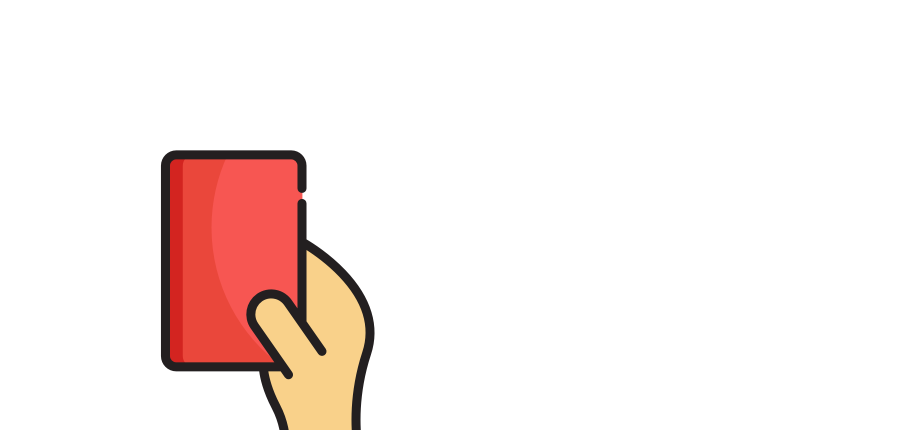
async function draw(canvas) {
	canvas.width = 912;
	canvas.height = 430;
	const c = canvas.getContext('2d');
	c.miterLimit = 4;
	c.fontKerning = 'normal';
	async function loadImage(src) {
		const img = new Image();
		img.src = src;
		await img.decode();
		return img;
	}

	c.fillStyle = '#fff';
	c.fillRect(0, 0, 912, 430);
	c.drawImage(await loadImage('img1.png'), 160, 150, 215, 280);
}

draw(document.querySelector('canvas'));
